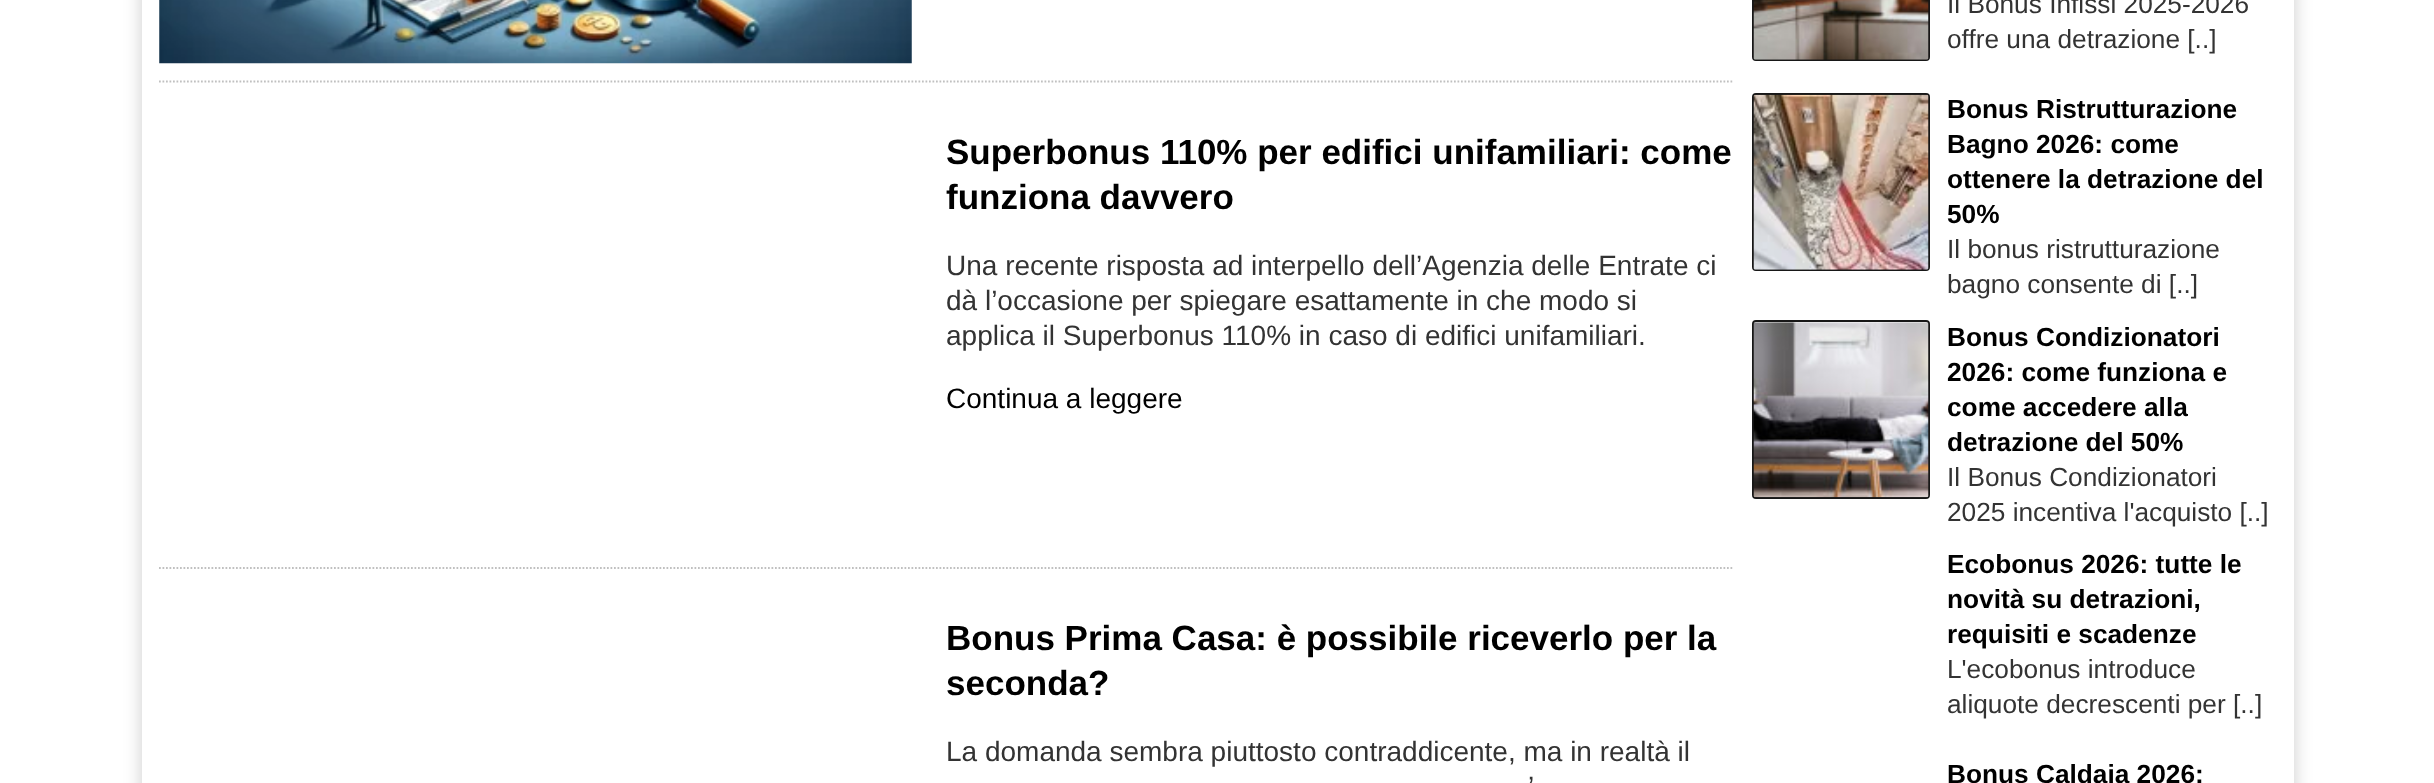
async function draw(canvas) {
	canvas.width = 2434;
	canvas.height = 783;
	const c = canvas.getContext('2d');
	c.miterLimit = 4;
	c.fontKerning = 'normal';
	async function loadImage(src) {
		const img = new Image();
		img.src = src;
		await img.decode();
		return img;
	}

	c.fillStyle = '#fff';
	c.fillRect(0, 0, 2434, 783);
	c.save();
	c.beginPath();
	c.moveTo(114, 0);
	c.lineTo(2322, 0);
	c.lineTo(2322, 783);
	c.lineTo(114, 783);
	c.closePath();
	c.moveTo(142, -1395);
	c.lineTo(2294, -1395);
	c.lineTo(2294, 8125);
	c.lineTo(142, 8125);
	c.closePath();
	c.clip('evenodd');
	c.fillStyle = '#00000033';
	c.filter = 'blur(9px)';
	c.beginPath();
	c.rect(142, -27, 2152, 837);
	c.fill();
	c.filter = 'none';
	c.restore();
	c.beginPath();
	c.moveTo(159, 81.5);
	c.lineTo(1734, 81.5);
	c.strokeStyle = '#c0c0c0';
	c.lineWidth = 1.8;
	c.setLineDash([1.75, 1.75]);
	c.stroke();
	c.drawImage(await loadImage('img1.png'), 159, 0, 753, 64);
	c.beginPath();
	c.moveTo(159, 568);
	c.lineTo(1734, 568);
	c.stroke();
	c.font = 'bold 35px Liberation Sans';
	c.fillStyle = '#000';
	c.fillText('Superbonus 110% per edifici unifamiliari: come', 946, 164);
	c.fillText('funziona davvero', 946, 209);
	c.font = '28px Liberation Sans';
	c.fillStyle = '#333';
	for (const [text, x, y] of [
		['Una recente risposta ad interpello dell’Agenzia delle Entrate ci', 946, 275],
		['dà l’occasione per spiegare esattamente in che modo si', 946, 310],
		['applica il Superbonus 110% in caso di edifici unifamiliari.', 946, 345],
	]) {
		c.fillText(text, x, y);
	}
	c.fillStyle = '#000';
	c.fillText('Continua a leggere', 946, 408);
	c.font = 'bold 35px Liberation Sans';
	c.fillText('Bonus Prima Casa: è possibile riceverlo per la', 946, 650);
	c.fillText('seconda?', 946, 695);
	c.font = '28px Liberation Sans';
	c.fillStyle = '#333';
	c.fillText('La domanda sembra piuttosto contraddicente, ma in realtà il', 946, 761);
	c.fillText('’', 1528, 796);
	c.beginPath();
	c.roundRect(1753, -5, 176, 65, 3);
	c.strokeStyle = '#171717';
	c.lineWidth = 2;
	c.setLineDash([]);
	c.stroke();
	c.drawImage(await loadImage('img2.png'), 1753, 0, 176, 60);
	c.font = '26.25px Liberation Sans';
	c.fillText('Il Bonus Infissi 2025-2026', 1947, 13);
	c.fillText('offre una detrazione [..]', 1947, 48);
	c.beginPath();
	c.roundRect(1753, 94, 176, 176, 3);
	c.stroke();
	c.drawImage(await loadImage('img3.png'), 1753, 94, 176, 176);
	c.font = 'bold 26.25px Liberation Sans';
	c.fillStyle = '#000';
	for (const [text, x, y] of [
		['Bonus Ristrutturazione', 1947, 118],
		['Bagno 2026: come', 1947, 153],
		['ottenere la detrazione del', 1947, 188],
		['50%', 1947, 223],
	]) {
		c.fillText(text, x, y);
	}
	c.font = '26.25px Liberation Sans';
	c.fillStyle = '#333';
	c.fillText('Il bonus ristrutturazione', 1947, 258);
	c.fillText('bagno consente di [..]', 1947, 293);
	c.beginPath();
	c.roundRect(1753, 321, 176, 177, 3);
	c.stroke();
	c.drawImage(await loadImage('img4.png'), 1753, 322, 176, 176);
	c.font = 'bold 26.25px Liberation Sans';
	c.fillStyle = '#000';
	for (const [text, x, y] of [
		['Bonus Condizionatori', 1947, 346],
		['2026: come funziona e', 1947, 381],
		['come accedere alla', 1947, 416],
		['detrazione del 50%', 1947, 451],
	]) {
		c.fillText(text, x, y);
	}
	c.font = '26.25px Liberation Sans';
	c.fillStyle = '#333';
	c.fillText('Il Bonus Condizionatori', 1947, 486);
	c.fillText('2025 incentiva l\'acquisto [..]', 1947, 521);
	c.font = 'bold 26.25px Liberation Sans';
	c.fillStyle = '#000';
	for (const [text, x, y] of [
		['Ecobonus 2026: tutte le', 1947, 573],
		['novità su detrazioni,', 1947, 608],
		['requisiti e scadenze', 1947, 643],
	]) {
		c.fillText(text, x, y);
	}
	c.font = '26.25px Liberation Sans';
	c.fillStyle = '#333';
	c.fillText('L\'ecobonus introduce', 1947, 678);
	c.fillText('aliquote decrescenti per [..]', 1947, 713);
	c.font = 'bold 26.25px Liberation Sans';
	c.fillStyle = '#000';
	c.fillText('Bonus Caldaia 2026:', 1947, 783);
}

draw(document.querySelector('canvas'));
